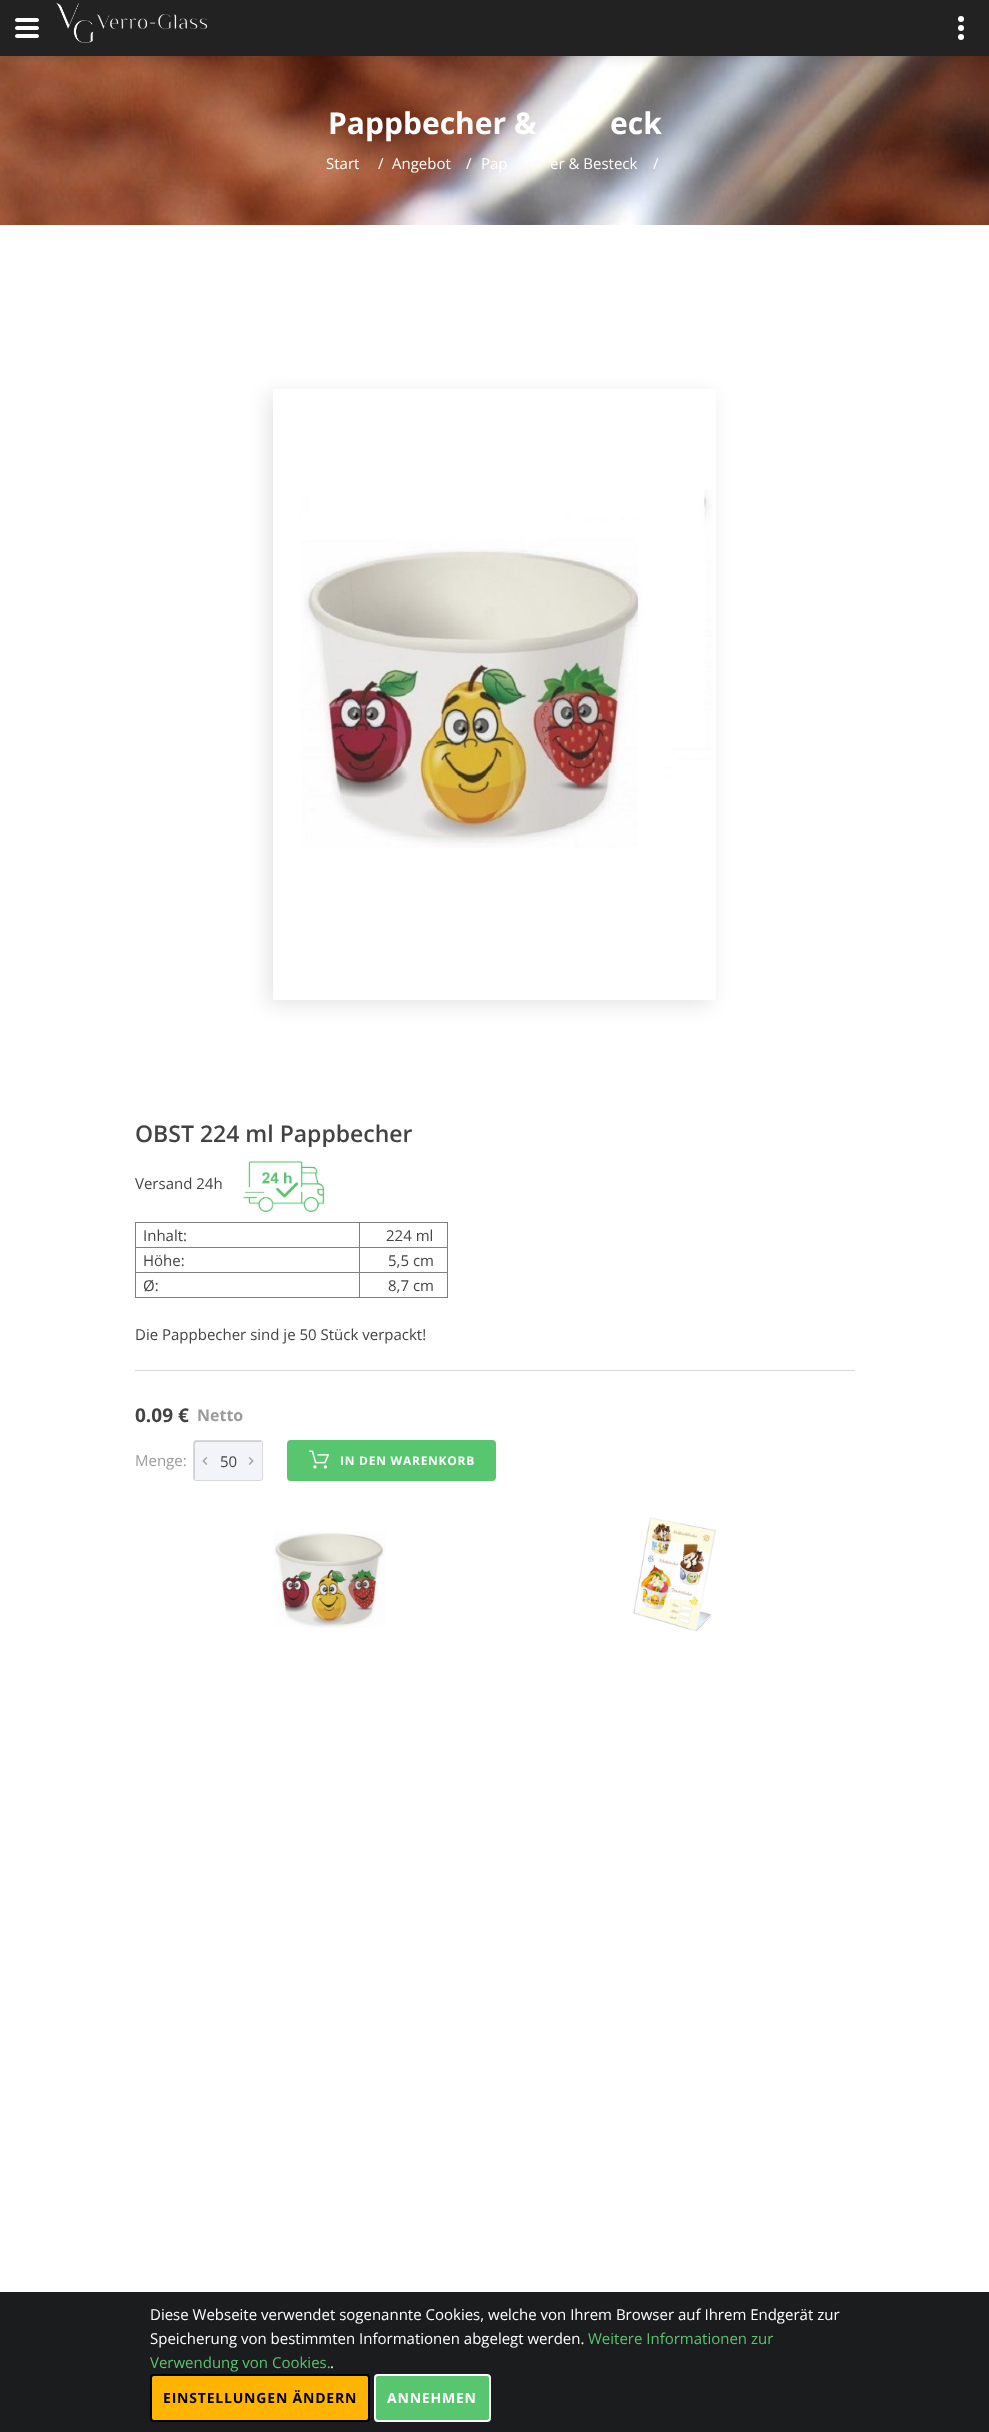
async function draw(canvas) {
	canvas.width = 989;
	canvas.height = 2432;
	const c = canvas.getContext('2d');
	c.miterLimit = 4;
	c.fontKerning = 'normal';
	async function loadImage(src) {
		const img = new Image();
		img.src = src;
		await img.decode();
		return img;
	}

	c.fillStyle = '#fff';
	c.fillRect(0, 0, 989, 2432);
	c.drawImage(await loadImage('img2.png'), 0, 56, 989, 169);
	c.fillStyle = '#0000002b';
	c.filter = 'blur(6.5px)';
	c.beginPath();
	c.rect(1, 1, 987, 54);
	c.fill();
	c.filter = 'none';
	c.fillStyle = '#222';
	c.fillRect(0, 0, 989, 56);
	c.fillStyle = '#fff';
	c.beginPath();
	c.moveTo(37, 30);
	c.lineTo(17, 30);
	c.bezierCurveTo(16, 30, 15, 29, 15, 28);
	c.bezierCurveTo(15, 27, 16, 26, 17, 26);
	c.lineTo(37, 26);
	c.bezierCurveTo(38, 26, 39, 27, 39, 28);
	c.bezierCurveTo(39, 29, 38, 30, 37, 30);
	c.closePath();
	c.moveTo(37, 38);
	c.lineTo(17, 38);
	c.bezierCurveTo(16, 38, 15, 37, 15, 36);
	c.bezierCurveTo(15, 35, 16, 34, 17, 34);
	c.lineTo(37, 34);
	c.bezierCurveTo(38, 34, 39, 35, 39, 36);
	c.bezierCurveTo(39, 37, 38, 38, 37, 38);
	c.closePath();
	c.moveTo(37, 22);
	c.lineTo(17, 22);
	c.bezierCurveTo(16, 22, 15, 21, 15, 20);
	c.bezierCurveTo(15, 19, 16, 18, 17, 18);
	c.lineTo(37, 18);
	c.bezierCurveTo(38, 18, 39, 19, 39, 20);
	c.bezierCurveTo(39, 21, 38, 22, 37, 22);
	c.closePath();
	c.fill();
	c.drawImage(await loadImage('img1.png'), 56, 3, 152, 40);
	c.beginPath();
	c.arc(961, 28, 3, 0, 2 * Math.PI);
	c.fill();
	c.beginPath();
	c.arc(961, 19, 3, 0, 2 * Math.PI);
	c.fill();
	c.beginPath();
	c.arc(961, 37, 3, 0, 2 * Math.PI);
	c.fill();
	c.font = 'bold 30px Open Sans';
	c.fillText('Pappbecher &', 328, 134);
	c.fillText('eck', 610, 134);
	c.font = '15px Open Sans';
	for (const [text, x, y] of [
		['Start', 326, 169],
		['/', 378, 169],
		['Angebot', 392, 169],
		['/', 466, 169],
		['Pap', 481, 169],
		['er & Besteck', 550, 169],
		['/', 653, 169],
	]) {
		c.fillText(text, x, y);
	}
	c.save();
	c.beginPath();
	c.moveTo(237, 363);
	c.lineTo(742, 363);
	c.lineTo(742, 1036);
	c.lineTo(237, 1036);
	c.closePath();
	c.moveTo(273, 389);
	c.lineTo(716, 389);
	c.lineTo(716, 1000);
	c.lineTo(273, 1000);
	c.closePath();
	c.clip('evenodd');
	c.fillStyle = '#0000001a';
	c.filter = 'blur(10px)';
	c.beginPath();
	c.rect(268, 394, 443, 611);
	c.fill();
	c.filter = 'none';
	c.restore();
	c.drawImage(await loadImage('img3.png'), 300, 489, 413, 359);
	c.font = '600 23px Open Sans';
	c.fillStyle = '#434345';
	c.fillText('OBST 224 ml Pappbecher', 135, 1142);
	c.fillStyle = '#d9d9d9';
	c.fillRect(135, 1370, 720, 1);
	c.font = '15px Open Sans';
	c.fillStyle = '#434345';
	c.fillText('Versand 24h', 135, 1189);
	c.drawImage(await loadImage('img4.png'), 242, 1147, 84, 67);
	for (const [x, y, w, h, color] of [
		[135, 1222, 313, 1, '#808080'],
		[447, 1222, 1, 76, '#808080'],
		[135, 1297, 313, 1, '#808080'],
		[135, 1222, 1, 76, '#808080'],
	]) {
		c.fillStyle = color;
		c.fillRect(x, y, w, h);
	}
	c.fillStyle = '#434345';
	c.fillText('Inhalt:', 143, 1241);
	for (const [x, y, w, h, color] of [
		[359, 1247, 89, 1, '#808080'],
		[359, 1272, 89, 1, '#808080'],
		[359, 1272, 1, 26, '#808080'],
		[135, 1272, 225, 1, '#808080'],
		[359, 1247, 1, 26, '#808080'],
		[135, 1247, 225, 1, '#808080'],
		[359, 1222, 1, 26, '#808080'],
	]) {
		c.fillStyle = color;
		c.fillRect(x, y, w, h);
	}
	c.fillStyle = '#434345';
	for (const [text, x, y] of [
		['224 ml', 386, 1241],
		['Höhe:', 143, 1266],
		['5,5 cm', 388, 1266],
		['Ø:', 143, 1291],
		['8,7 cm', 388, 1291],
		['Die Pappbecher sind je 50 Stück verpackt!', 135, 1340],
	]) {
		c.fillText(text, x, y);
	}
	c.font = 'bold 19px Open Sans';
	c.fillText('0.09 €', 135, 1422);
	c.font = 'bold 16px Open Sans';
	c.fillStyle = '#9b9b9b';
	c.fillText('Netto', 197, 1421);
	c.font = '15px Open Sans';
	c.fillText('Menge:', 135, 1466);
	c.fillStyle = '#f3f4f9';
	c.beginPath();
	c.roundRect(193, 1440, 70, 41, 3);
	c.fill();
	c.fillStyle = '#cfcfd4';
	c.beginPath();
	c.moveTo(197, 1442);
	c.lineTo(262, 1442);
	c.lineTo(260, 1441);
	c.lineTo(207, 1441);
	c.bezierCurveTo(194, 1441, 194, 1438, 194, 1449);
	c.lineTo(194, 1472);
	c.bezierCurveTo(194, 1473, 193, 1479, 195, 1480);
	c.lineTo(195, 1450);
	c.bezierCurveTo(195, 1449, 194, 1442, 197, 1442);
	c.closePath();
	c.fill();
	c.beginPath();
	c.roundRect(193.5, 1440.5, 69, 40, 2.5);
	c.strokeStyle = '#d9d9d9';
	c.stroke();
	c.drawImage(await loadImage('img5.png'), 202, 1457, 6, 8);
	c.fillStyle = '#434345';
	c.fillText('50', 220, 1467);
	c.drawImage(await loadImage('img6.png'), 248, 1457, 6, 8);
	c.fillStyle = '#58c56f';
	c.beginPath();
	c.roundRect(288, 1441, 207, 39, 3);
	c.fill();
	c.strokeStyle = '#58c56f';
	c.lineWidth = 2;
	c.stroke();
	c.drawImage(await loadImage('img7.png'), 309, 1450, 20, 19);
	c.letterSpacing = '0.75px';
	c.font = 'bold 12px Open Sans';
	c.fillStyle = '#fff';
	c.fillText('IN DEN WARENKORB', 340, 1465);
	c.drawImage(await loadImage('img8.png'), 274, 1531, 112, 97);
	c.drawImage(await loadImage('img9.png'), 633, 1517, 83, 115);
	c.fillStyle = '#1b1c1e';
	c.fillRect(0, 2292, 989, 140);
	c.letterSpacing = '0px';
	c.font = '15px Open Sans';
	c.fillStyle = '#fff';
	c.fillText('Diese Webseite verwendet sogenannte Cookies, welche von Ihrem Browser auf Ihrem Endgerät zur', 150, 2320);
	c.fillText('Speicherung von bestimmten Informationen abgelegt werden.', 150, 2344);
	c.fillStyle = '#58c56f';
	c.fillText('Weitere Informationen zur', 588, 2344);
	c.fillText('Verwendung von Cookies.', 150, 2368);
	c.fillStyle = '#fff';
	c.fillText('.', 330, 2368);
	c.fillStyle = '#ffb400';
	c.beginPath();
	c.roundRect(151, 2375, 218, 46, 3);
	c.fill();
	c.strokeStyle = '#000';
	c.stroke();
	c.letterSpacing = '0.8px';
	c.font = 'bold 14px Open Sans';
	c.fillStyle = '#000';
	c.fillText('EINSTELLUNGEN ÄNDERN', 163, 2403);
	c.fillStyle = '#58c56f';
	c.beginPath();
	c.roundRect(375, 2375, 115, 46, 3);
	c.fill();
	c.strokeStyle = '#fff';
	c.stroke();
	c.fillStyle = '#fff';
	c.fillText('ANNEHMEN', 387, 2403);
}

draw(document.querySelector('canvas'));
